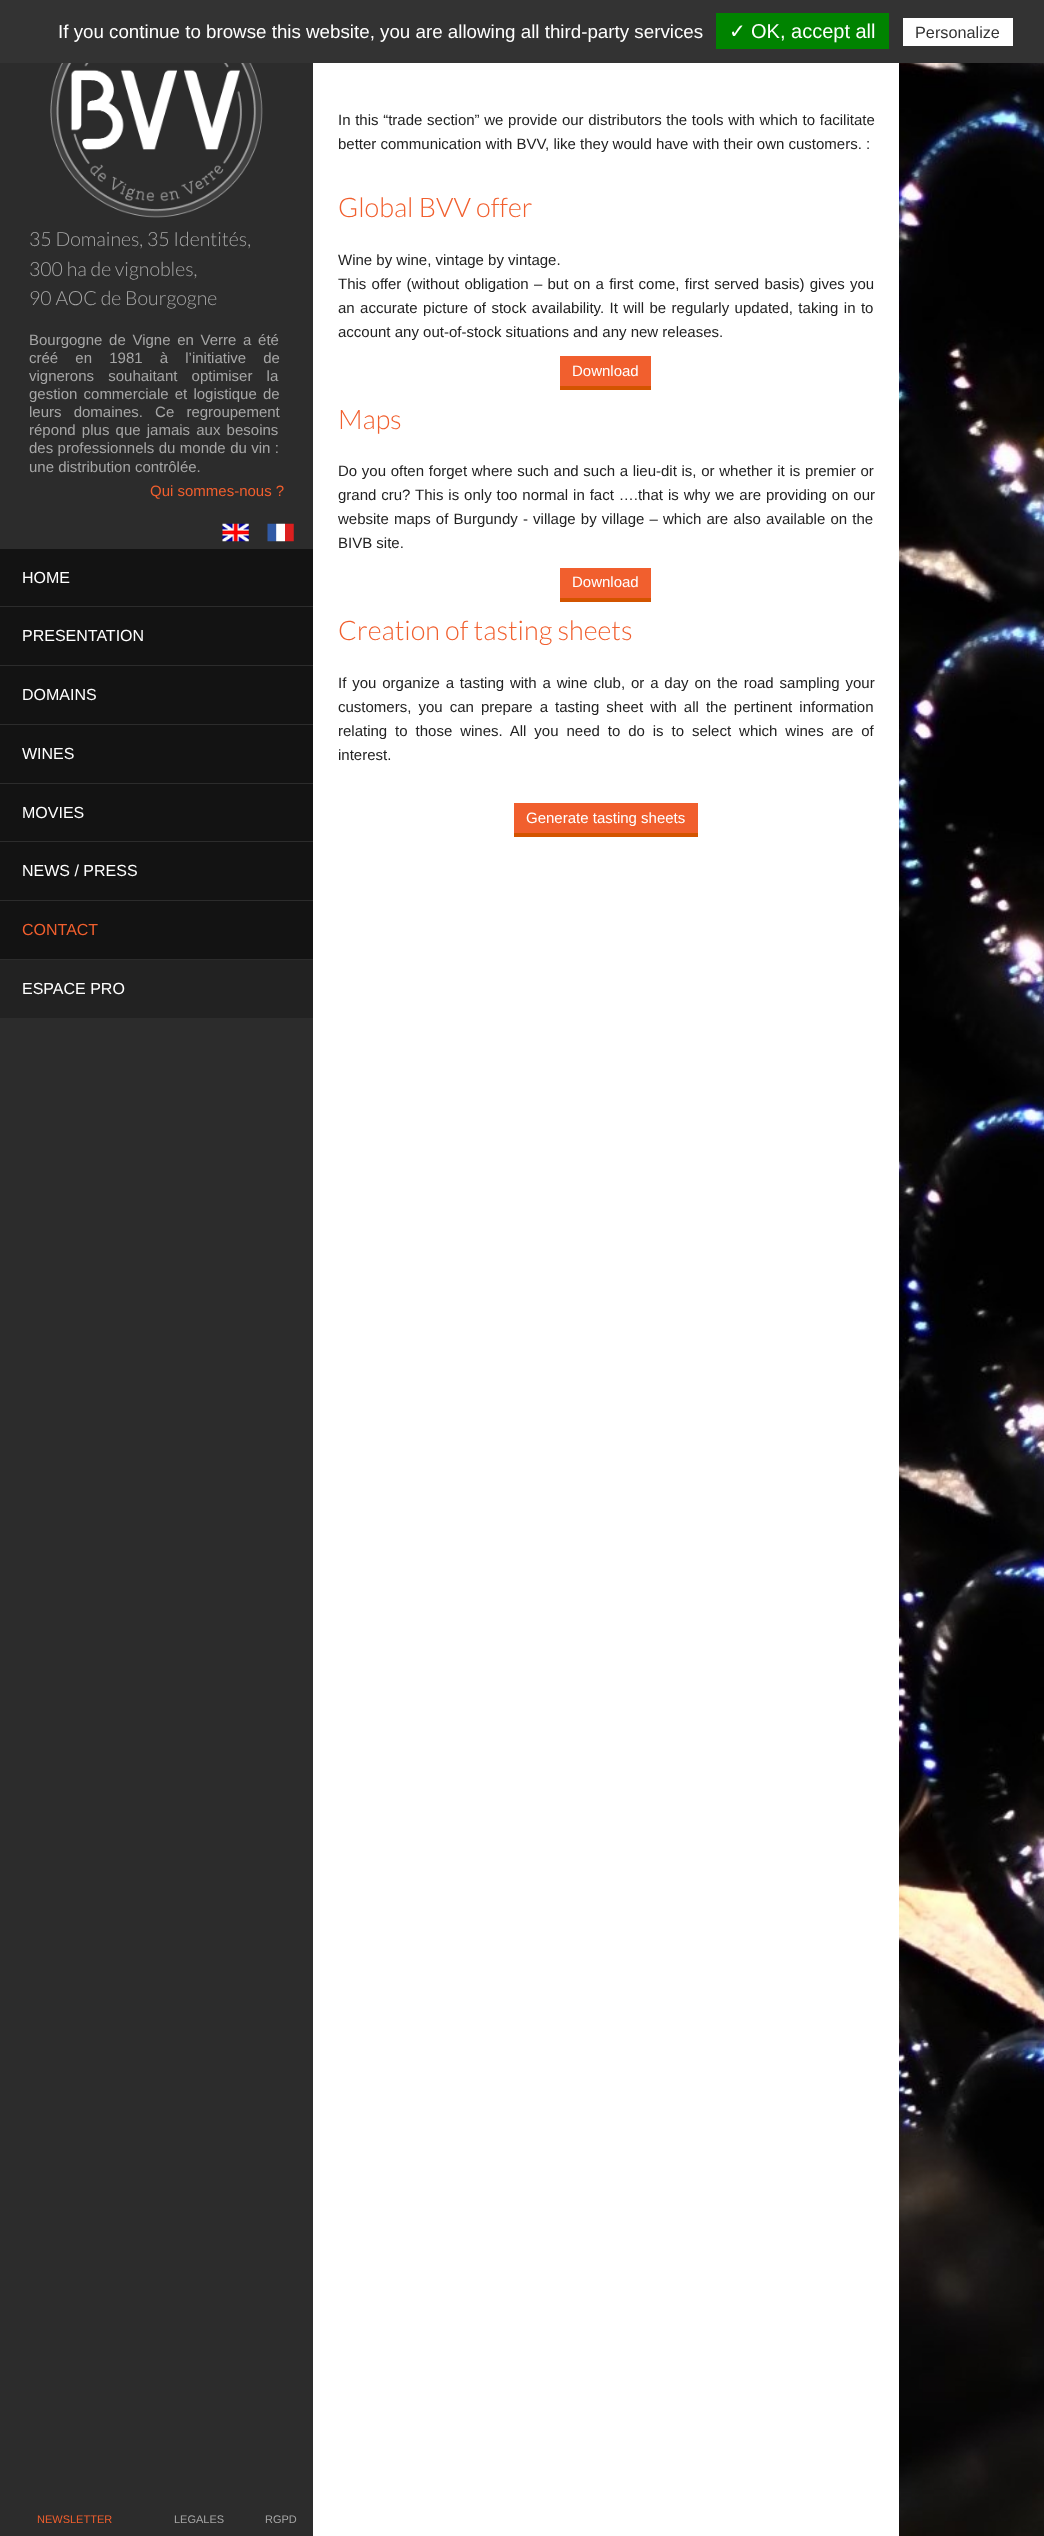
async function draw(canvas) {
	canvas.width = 1044;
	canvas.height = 2536;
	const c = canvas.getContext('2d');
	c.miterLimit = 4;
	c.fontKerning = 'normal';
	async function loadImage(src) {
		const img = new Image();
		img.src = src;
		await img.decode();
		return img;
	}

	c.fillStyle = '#fff';
	c.fillRect(0, 0, 1044, 2536);
	c.drawImage(await loadImage('img1.png'), 899, 63, 145, 2473);
	c.fillStyle = '#333';
	c.fillRect(0, 0, 1044, 63);
	c.font = '18.75px Liberation Sans';
	c.fillStyle = '#fff';
	c.fillText('If you continue to browse this website, you are allowing all third-party services', 58, 38);
	c.fillStyle = '#008300';
	c.fillRect(716, 13, 173, 36);
	c.font = '20px DejaVu Sans';
	c.fillStyle = '#fff';
	c.fillText('✓', 729, 38);
	c.font = '20px Liberation Sans';
	c.fillText('OK, accept all', 751, 38);
	c.fillRect(903, 18, 110, 28);
	c.font = '16.25px Liberation Sans';
	c.fillStyle = '#333';
	c.fillText('Personalize', 915, 38);
	c.fillStyle = '#2c2c2c';
	c.fillRect(0, 63, 313, 2473);
	c.drawImage(await loadImage('img2.png'), 50, 63, 213, 155);
	c.font = '300 19.5px Lato';
	c.fillStyle = '#a6a6a6';
	for (const [text, x, y] of [
		['35 Domaines, 35 Identités,', 29, 246],
		['300 ha de vignobles,', 29, 276],
		['90 AOC de Bourgogne', 29, 305],
	]) {
		c.fillText(text, x, y);
	}
	c.wordSpacing = '2.5px';
	c.font = '15px Liberation Sans';
	c.fillText('Bourgogne de Vigne en Verre a été', 29, 345);
	c.wordSpacing = '13px';
	c.fillText('créé en 1981 à l’initiative de', 29, 363);
	c.wordSpacing = '10px';
	c.fillText('vignerons souhaitant optimiser la', 29, 381);
	c.wordSpacing = '2px';
	c.fillText('gestion commerciale et logistique de', 29, 399);
	c.wordSpacing = '8px';
	c.fillText('leurs domaines. Ce regroupement', 29, 417);
	c.wordSpacing = '2px';
	c.fillText('répond plus que jamais aux besoins', 29, 435);
	c.wordSpacing = '0.25px';
	c.fillText('des professionnels du monde du vin :', 29, 453);
	c.wordSpacing = '0px';
	c.fillText('une distribution contrôlée.', 29, 472);
	c.fillStyle = '#f15f2e';
	c.fillText('Qui sommes-nous ?', 150, 496);
	c.drawImage(await loadImage('img3.png'), 222, 523, 27, 19);
	c.drawImage(await loadImage('img4.png'), 267, 523, 27, 19);
	c.fillStyle = '#131313';
	c.fillRect(0, 549, 313, 116);
	c.fillStyle = '#2c2c2c';
	c.fillRect(0, 606, 313, 1);
	c.font = '16px Liberation Sans';
	c.fillStyle = '#fff';
	c.fillText('HOME', 22, 583);
	c.fillText('PRESENTATION', 22, 641);
	c.fillStyle = '#131313';
	c.fillRect(0, 666, 313, 58);
	c.fillStyle = '#fff';
	c.fillText('DOMAINS', 22, 700);
	c.fillStyle = '#131313';
	c.fillRect(0, 725, 313, 58);
	c.fillStyle = '#fff';
	c.fillText('WINES', 22, 759);
	c.fillStyle = '#131313';
	c.fillRect(0, 784, 313, 116);
	c.fillStyle = '#2c2c2c';
	c.fillRect(0, 841, 313, 1);
	c.fillStyle = '#fff';
	c.fillText('MOVIES', 22, 818);
	c.fillText('NEWS / PRESS', 22, 876);
	c.fillStyle = '#131313';
	c.fillRect(0, 901, 313, 58);
	c.fillStyle = '#f15f2e';
	c.fillText('CONTACT', 22, 935);
	c.fillStyle = '#222';
	c.fillRect(0, 960, 313, 58);
	c.fillStyle = '#fff';
	c.fillText('ESPACE PRO', 22, 994);
	c.font = '11px Liberation Sans';
	c.fillStyle = '#f15f2e';
	c.fillText('NEWSLETTER', 37, 2523);
	c.fillStyle = '#a6a6a6';
	c.fillText('LEGALES', 174, 2523);
	c.fillText('RGPD', 265, 2523);
	c.wordSpacing = '0.5px';
	c.font = '15px Liberation Sans';
	c.fillStyle = '#222';
	c.fillText('In this “trade section” we provide our distributors the tools with which to facilitate', 338, 125);
	c.wordSpacing = '0px';
	c.fillText('better communication with BVV, like they would have with their own customers. :', 338, 149);
	c.font = '300 27px Lato';
	c.fillStyle = '#f15f2e';
	c.fillText('Global BVV offer', 338, 217);
	c.font = '15px Liberation Sans';
	c.fillStyle = '#222';
	c.fillText('Wine by wine, vintage by vintage.', 338, 265);
	c.wordSpacing = '1.1px';
	c.fillText('This offer (without obligation – but on a first come, first served basis) gives you', 338, 289);
	c.wordSpacing = '1.25px';
	c.fillText('an accurate picture of stock availability. It will be regularly updated, taking in to', 338, 313);
	c.wordSpacing = '0px';
	c.fillText('account any out-of-stock situations and any new releases.', 338, 337);
	c.fillStyle = '#f15f2e';
	c.fillRect(560, 356, 91, 30);
	c.fillStyle = '#fff';
	c.fillText('Download', 572, 376);
	c.fillStyle = '#d35400';
	c.fillRect(560, 386, 91, 4);
	c.font = '300 27px Lato';
	c.fillStyle = '#f15f2e';
	c.fillText('Maps', 338, 429);
	c.wordSpacing = '0.5px';
	c.font = '15px Liberation Sans';
	c.fillStyle = '#222';
	c.fillText('Do you often forget where such and such a lieu-dit is, or whether it is premier or', 338, 476);
	c.wordSpacing = '0.75px';
	c.fillText('grand cru? This is only too normal in fact ….that is why we are providing on our', 338, 500);
	c.wordSpacing = '1px';
	c.fillText('website maps of Burgundy - village by village – which are also available on the', 338, 524);
	c.wordSpacing = '0px';
	c.fillText('BIVB site.', 338, 548);
	c.fillStyle = '#f15f2e';
	c.fillRect(560, 568, 91, 30);
	c.fillStyle = '#fff';
	c.fillText('Download', 572, 587);
	c.fillStyle = '#d35400';
	c.fillRect(560, 598, 91, 4);
	c.font = '300 27px Lato';
	c.fillStyle = '#f15f2e';
	c.fillText('Creation of tasting sheets', 338, 640);
	c.wordSpacing = '1.7px';
	c.font = '15px Liberation Sans';
	c.fillStyle = '#222';
	c.fillText('If you organize a tasting with a wine club, or a day on the road sampling your', 338, 688);
	c.wordSpacing = '2.9px';
	c.fillText('customers, you can prepare a tasting sheet with all the pertinent information', 338, 712);
	c.wordSpacing = '3.75px';
	c.fillText('relating to those wines. All you need to do is to select which wines are of', 338, 736);
	c.wordSpacing = '0px';
	c.fillText('interest.', 338, 760);
	c.fillStyle = '#f15f2e';
	c.fillRect(514, 803, 184, 30);
	c.fillStyle = '#fff';
	c.fillText('Generate tasting sheets', 526, 823);
	c.fillStyle = '#d35400';
	c.fillRect(514, 833, 184, 4);
}

draw(document.querySelector('canvas'));
